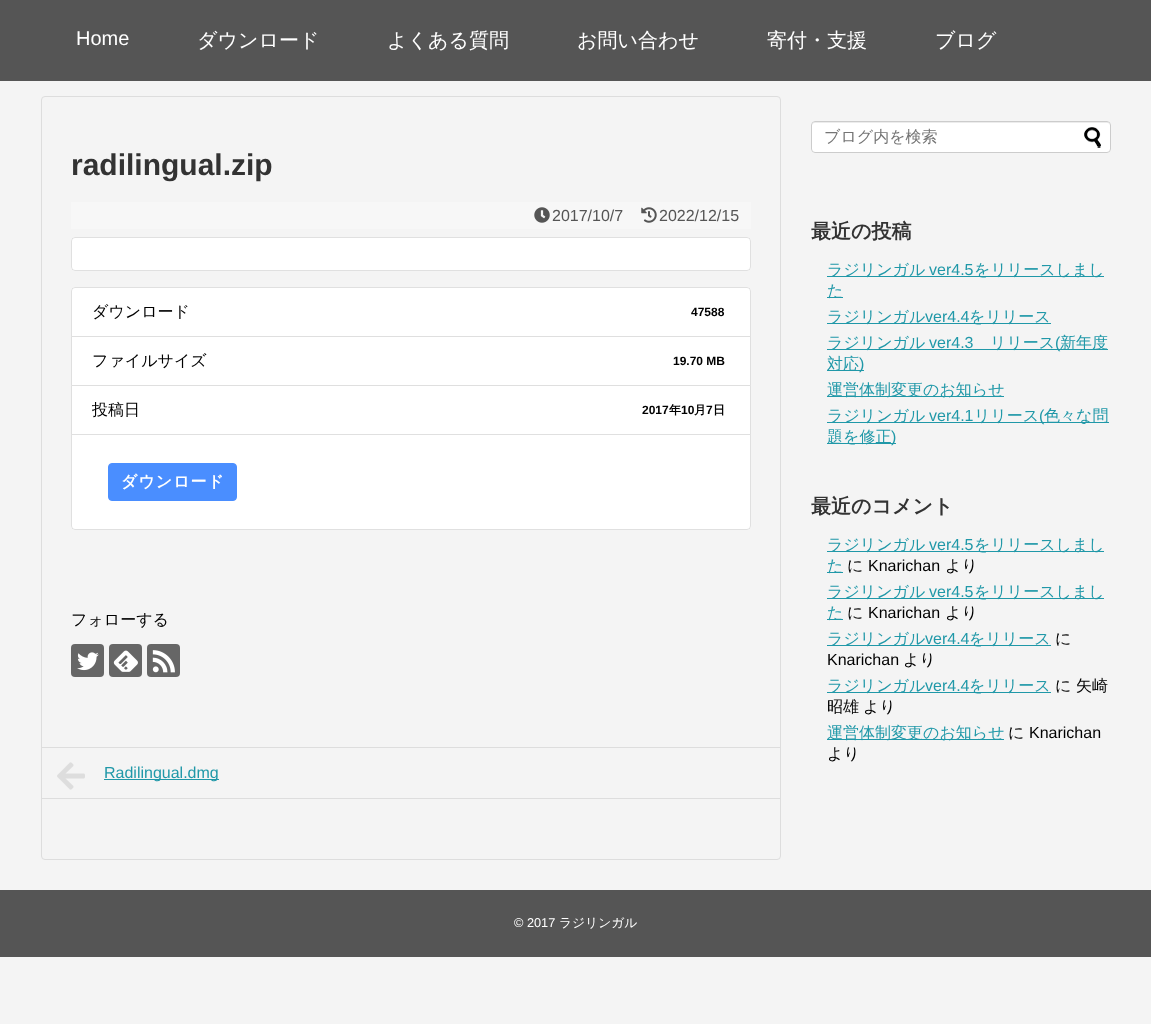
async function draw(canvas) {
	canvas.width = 1151;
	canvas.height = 1024;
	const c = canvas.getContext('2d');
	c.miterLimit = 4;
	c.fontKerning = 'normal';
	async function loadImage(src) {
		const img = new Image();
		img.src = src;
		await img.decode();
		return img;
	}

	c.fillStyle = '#f4f4f4';
	c.fillRect(0, 0, 1151, 1024);
	c.fillStyle = '#555';
	c.fillRect(0, 0, 1151, 81);
	c.font = '20px Liberation Sans';
	c.fillStyle = '#fff';
	c.fillText('Home', 76, 45);
	c.font = '500 20px WenQuanYi Zen Hei';
	for (const [text, x, y] of [
		['ダウンロード', 197, 47],
		['よくある質問', 387, 47],
		['お問い合わせ', 577, 47],
		['寄付・支援', 767, 47],
		['ブログ', 935, 47],
	]) {
		c.fillText(text, x, y);
	}
	c.beginPath();
	c.roundRect(41.5, 96.5, 739, 763, 3.5);
	c.strokeStyle = '#ddd';
	c.stroke();
	c.font = 'bold 30px Liberation Sans';
	c.fillStyle = '#333';
	c.fillText('radilingual.zip', 71, 175);
	c.fillStyle = '#f7f7f7';
	c.fillRect(71, 202, 680, 27);
	c.drawImage(await loadImage('img1.png'), 534, 207, 16, 16);
	c.font = '16px Liberation Sans';
	c.fillStyle = '#555';
	c.fillText('2017/10/7', 552, 221);
	c.drawImage(await loadImage('img2.png'), 641, 207, 16, 16);
	c.fillText('2022/12/15', 659, 221);
	c.fillStyle = '#fff';
	c.beginPath();
	c.roundRect(71, 237, 680, 34, 4);
	c.fill();
	c.beginPath();
	c.roundRect(71.5, 237.5, 679, 33, 3.5);
	c.strokeStyle = '#0000001f';
	c.stroke();
	c.beginPath();
	c.roundRect(71, 287, 680, 50, [4, 4, 0, 0]);
	c.fill();
	c.beginPath();
	c.roundRect(71.5, 287.5, 679, 49, [3.5, 3.5, 0, 0]);
	c.stroke();
	c.font = '500 16px WenQuanYi Zen Hei';
	c.fillStyle = '#000';
	c.fillText('ダウンロード', 92, 317);
	c.font = 'bold 12px Liberation Sans';
	c.fillText('47588', 691, 316);
	c.fillStyle = '#fff';
	c.beginPath();
	c.rect(71.5, 336.5, 679, 49);
	c.fill();
	c.strokeStyle = '#dfdfdf';
	c.stroke();
	c.font = '500 16px WenQuanYi Zen Hei';
	c.fillStyle = '#000';
	c.fillText('ファイルサイズ', 92, 366);
	c.font = 'bold 12px Liberation Sans';
	c.fillText('19.70 MB', 673, 365);
	c.fillStyle = '#fff';
	c.beginPath();
	c.rect(71.5, 385.5, 679, 49);
	c.fill();
	c.stroke();
	c.font = '500 16px WenQuanYi Zen Hei';
	c.fillStyle = '#000';
	c.fillText('投稿日', 92, 415);
	c.font = 'bold 12px Liberation Sans';
	c.fillText('2017', 642, 414);
	c.font = 'bold 12px WenQuanYi Zen Hei';
	c.fillText('年', 669, 414);
	c.font = 'bold 12px Liberation Sans';
	c.fillText('10', 681, 414);
	c.font = 'bold 12px WenQuanYi Zen Hei';
	c.fillText('月', 694, 414);
	c.font = 'bold 12px Liberation Sans';
	c.fillText('7', 706, 414);
	c.font = 'bold 12px WenQuanYi Zen Hei';
	c.fillText('日', 713, 414);
	c.fillStyle = '#fff';
	c.beginPath();
	c.roundRect(71, 434, 680, 96, [0, 0, 4, 4]);
	c.fill();
	c.beginPath();
	c.roundRect(71.5, 434.5, 679, 95, [0, 0, 3.5, 3.5]);
	c.strokeStyle = '#0000001f';
	c.stroke();
	c.fillStyle = '#4a8eff';
	c.beginPath();
	c.roundRect(108.5, 463.5, 128, 37, 3.5);
	c.fill();
	c.strokeStyle = '#4a8eff';
	c.stroke();
	c.letterSpacing = '1px';
	c.font = 'bold 16px WenQuanYi Zen Hei';
	c.fillStyle = '#fff';
	c.fillText('ダウンロード', 121, 487);
	c.letterSpacing = '0px';
	c.font = '500 16px WenQuanYi Zen Hei';
	c.fillStyle = '#000';
	c.fillText('フォローする', 71, 625);
	c.fillStyle = '#666';
	c.beginPath();
	c.roundRect(71, 644, 33, 33, 4);
	c.fill();
	c.drawImage(await loadImage('img3.png'), 77, 652, 22, 19);
	c.beginPath();
	c.roundRect(109, 644, 33, 33, 4);
	c.fill();
	c.drawImage(await loadImage('img4.png'), 113, 650, 25, 22);
	c.beginPath();
	c.roundRect(147, 644, 33, 33, 4);
	c.fill();
	c.drawImage(await loadImage('img5.png'), 152, 650, 23, 23);
	c.fillStyle = '#ddd';
	c.fillRect(41, 747, 740, 1);
	c.fillRect(41, 798, 740, 1);
	c.drawImage(await loadImage('img6.png'), 57, 762, 28, 28);
	c.fillStyle = '#2098a8';
	c.fillRect(104, 779, 115, 1);
	c.font = '16px Liberation Sans';
	c.fillText('Radilingual.dmg', 104, 778);
	c.fillStyle = '#fff';
	c.beginPath();
	c.roundRect(811, 121, 300, 32, 4);
	c.fill();
	c.fillStyle = '#ececec';
	c.beginPath();
	c.moveTo(815, 123);
	c.lineTo(1107, 123);
	c.bezierCurveTo(1109, 123, 1110, 124, 1110, 126);
	c.lineTo(1109, 123);
	c.lineTo(1108, 122);
	c.lineTo(815, 122);
	c.bezierCurveTo(813, 122, 812, 124, 812, 126);
	c.bezierCurveTo(812, 124, 813, 123, 815, 123);
	c.closePath();
	c.fill();
	c.beginPath();
	c.roundRect(811.5, 121.5, 299, 31, 3.5);
	c.strokeStyle = '#ccc';
	c.stroke();
	c.font = '500 16px WenQuanYi Zen Hei';
	c.fillStyle = '#757575';
	c.fillText('ブログ内を検索', 824, 142);
	c.drawImage(await loadImage('img7.png'), 1084, 127, 17, 21);
	c.font = 'bold 20px WenQuanYi Zen Hei';
	c.fillStyle = '#333';
	c.fillText('最近の投稿', 811, 238);
	c.fillStyle = '#2098a8';
	c.fillRect(827, 276, 277, 1);
	c.font = '500 16px WenQuanYi Zen Hei';
	c.fillText('ラジリンガル', 827, 275);
	c.font = '16px Liberation Sans';
	c.fillText('ver4.5', 929, 275);
	c.font = '500 16px WenQuanYi Zen Hei';
	c.fillText('をリリースしまし', 974, 275);
	c.fillRect(827, 297, 16, 1);
	c.fillText('た', 827, 296);
	c.fillRect(827, 323, 224, 1);
	c.fillText('ラジリンガル', 827, 322);
	c.font = '16px Liberation Sans';
	c.fillText('ver4.4', 925, 322);
	c.font = '500 16px WenQuanYi Zen Hei';
	c.fillText('をリリース', 969, 322);
	c.fillRect(827, 349, 281, 1);
	c.fillText('ラジリンガル', 827, 348);
	c.font = '16px Liberation Sans';
	c.fillText('ver4.3', 929, 348);
	c.font = '500 16px WenQuanYi Zen Hei';
	c.fillText('リリース', 990, 348);
	c.font = '16px Liberation Sans';
	c.fillText('(', 1055, 348);
	c.font = '500 16px WenQuanYi Zen Hei';
	c.fillText('新年度', 1060, 348);
	c.fillRect(827, 370, 37, 1);
	c.fillText('対応', 827, 369);
	c.font = '16px Liberation Sans';
	c.fillText(')', 859, 369);
	c.fillRect(827, 396, 177, 1);
	c.font = '500 16px WenQuanYi Zen Hei';
	c.fillText('運営体制変更のお知らせ', 827, 395);
	c.fillRect(827, 422, 282, 1);
	c.fillText('ラジリンガル', 827, 421);
	c.font = '16px Liberation Sans';
	c.fillText('ver4.1', 929, 421);
	c.font = '500 16px WenQuanYi Zen Hei';
	c.fillText('リリース', 974, 421);
	c.font = '16px Liberation Sans';
	c.fillText('(', 1039, 421);
	c.font = '500 16px WenQuanYi Zen Hei';
	c.fillText('色々な問', 1044, 421);
	c.fillRect(827, 443, 69, 1);
	c.fillText('題を修正', 827, 442);
	c.font = '16px Liberation Sans';
	c.fillText(')', 891, 442);
	c.font = 'bold 20px WenQuanYi Zen Hei';
	c.fillStyle = '#333';
	c.fillText('最近のコメント', 811, 513);
	c.fillStyle = '#2098a8';
	c.fillRect(827, 551, 277, 1);
	c.font = '500 16px WenQuanYi Zen Hei';
	c.fillText('ラジリンガル', 827, 550);
	c.font = '16px Liberation Sans';
	c.fillText('ver4.5', 929, 550);
	c.font = '500 16px WenQuanYi Zen Hei';
	c.fillText('をリリースしまし', 974, 550);
	c.fillRect(827, 572, 16, 1);
	c.fillText('た', 827, 571);
	c.fillStyle = '#000';
	c.fillText('に', 847, 571);
	c.font = '16px Liberation Sans';
	c.fillText('Knarichan', 868, 571);
	c.font = '500 16px WenQuanYi Zen Hei';
	c.fillText('より', 945, 571);
	c.fillStyle = '#2098a8';
	c.fillRect(827, 598, 277, 1);
	c.fillText('ラジリンガル', 827, 597);
	c.font = '16px Liberation Sans';
	c.fillText('ver4.5', 929, 597);
	c.font = '500 16px WenQuanYi Zen Hei';
	c.fillText('をリリースしまし', 974, 597);
	c.fillRect(827, 619, 16, 1);
	c.fillText('た', 827, 618);
	c.fillStyle = '#000';
	c.fillText('に', 847, 618);
	c.font = '16px Liberation Sans';
	c.fillText('Knarichan', 868, 618);
	c.font = '500 16px WenQuanYi Zen Hei';
	c.fillText('より', 945, 618);
	c.fillStyle = '#2098a8';
	c.fillRect(827, 645, 224, 1);
	c.fillText('ラジリンガル', 827, 644);
	c.font = '16px Liberation Sans';
	c.fillText('ver4.4', 925, 644);
	c.font = '500 16px WenQuanYi Zen Hei';
	c.fillText('をリリース', 969, 644);
	c.fillStyle = '#000';
	c.fillText('に', 1055, 644);
	c.font = '16px Liberation Sans';
	c.fillText('Knarichan', 827, 665);
	c.font = '500 16px WenQuanYi Zen Hei';
	c.fillText('より', 903, 665);
	c.fillStyle = '#2098a8';
	c.fillRect(827, 692, 224, 1);
	c.fillText('ラジリンガル', 827, 691);
	c.font = '16px Liberation Sans';
	c.fillText('ver4.4', 925, 691);
	c.font = '500 16px WenQuanYi Zen Hei';
	c.fillText('をリリース', 969, 691);
	c.fillStyle = '#000';
	for (const [text, x, y] of [
		['に', 1055, 691],
		['矢崎', 1076, 691],
		['昭雄', 827, 712],
		['より', 863, 712],
	]) {
		c.fillText(text, x, y);
	}
	c.fillStyle = '#2098a8';
	c.fillRect(827, 739, 177, 1);
	c.fillText('運営体制変更のお知らせ', 827, 738);
	c.fillStyle = '#000';
	c.fillText('に', 1008, 738);
	c.font = '16px Liberation Sans';
	c.fillText('Knarichan', 1029, 738);
	c.font = '500 16px WenQuanYi Zen Hei';
	c.fillText('より', 827, 759);
	c.fillStyle = '#555';
	c.fillRect(0, 890, 1151, 67);
	c.font = '12.75px Liberation Sans';
	c.fillStyle = '#fff';
	c.fillText('© 2017', 514, 927);
	c.font = '500 12.75px WenQuanYi Zen Hei';
	c.fillText('ラジリンガル', 559, 927);
}

draw(document.querySelector('canvas'));
